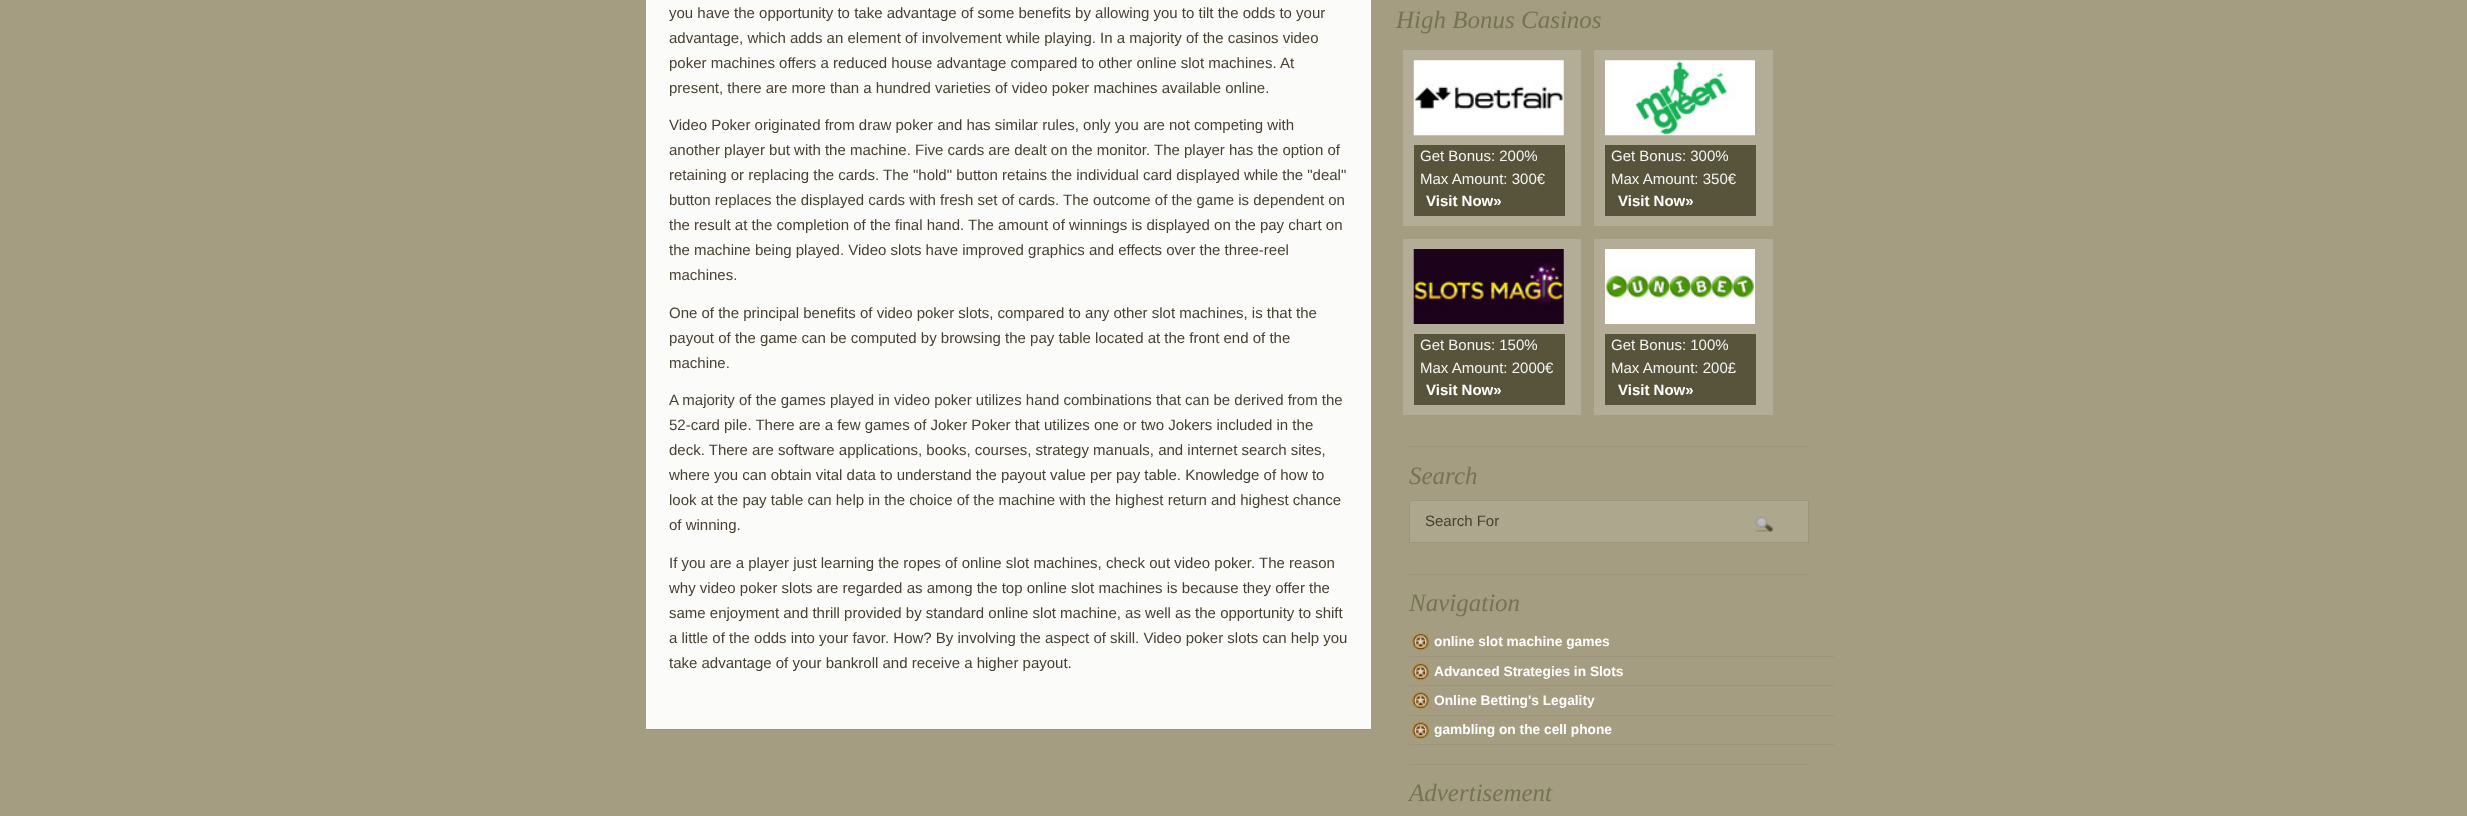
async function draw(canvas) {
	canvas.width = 2467;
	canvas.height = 816;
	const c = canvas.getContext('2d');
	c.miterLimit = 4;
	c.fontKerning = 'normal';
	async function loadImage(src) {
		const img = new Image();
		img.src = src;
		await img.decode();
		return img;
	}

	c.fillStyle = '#a49d82';
	c.fillRect(0, 0, 2467, 816);
	c.fillStyle = '#fbfbfa';
	c.fillRect(646, 0, 725, 729);
	c.fillStyle = '#9c957b';
	c.fillRect(646, 729, 725, 1);
	c.font = '15px Liberation Sans';
	c.fillStyle = '#473f2f';
	for (const [text, x, y] of [
		['you have the opportunity to take advantage of some benefits by allowing you to tilt the odds to your', 669, 18],
		['advantage, which adds an element of involvement while playing. In a majority of the casinos video', 669, 43],
		['poker machines offers a reduced house advantage compared to other online slot machines. At', 669, 68],
		['present, there are more than a hundred varieties of video poker machines available online.', 669, 93],
		['Video Poker originated from draw poker and has similar rules, only you are not competing with', 669, 130],
		['another player but with the machine. Five cards are dealt on the monitor. The player has the option of', 669, 155],
		['retaining or replacing the cards. The "hold" button retains the individual card displayed while the "deal"', 669, 180],
		['button replaces the displayed cards with fresh set of cards. The outcome of the game is dependent on', 669, 205],
		['the result at the completion of the final hand. The amount of winnings is displayed on the pay chart on', 669, 230],
		['the machine being played. Video slots have improved graphics and effects over the three-reel', 669, 255],
		['machines.', 669, 280],
		['One of the principal benefits of video poker slots, compared to any other slot machines, is that the', 669, 318],
		['payout of the game can be computed by browsing the pay table located at the front end of the', 669, 343],
		['machine.', 669, 368],
		['A majority of the games played in video poker utilizes hand combinations that can be derived from the', 669, 405],
		['52-card pile. There are a few games of Joker Poker that utilizes one or two Jokers included in the', 669, 430],
		['deck. There are software applications, books, courses, strategy manuals, and internet search sites,', 669, 455],
		['where you can obtain vital data to understand the payout value per pay table. Knowledge of how to', 669, 480],
		['look at the pay table can help in the choice of the machine with the highest return and highest chance', 669, 505],
		['of winning.', 669, 530],
		['If you are a player just learning the ropes of online slot machines, check out video poker. The reason', 669, 568],
		['why video poker slots are regarded as among the top online slot machines is because they offer the', 669, 593],
		['same enjoyment and thrill provided by standard online slot machine, as well as the opportunity to shift', 669, 618],
		['a little of the odds into your favor. How? By involving the aspect of skill. Video poker slots can help you', 669, 643],
		['take advantage of your bankroll and receive a higher payout.', 669, 668],
	]) {
		c.fillText(text, x, y);
	}
	c.font = 'italic 25px Liberation Serif';
	c.fillStyle = '#757351';
	c.fillText('High Bonus Casinos', 1396, 28);
	c.fillStyle = '#b3ad97';
	c.fillRect(1403, 50, 178, 176);
	c.drawImage(await loadImage('img1.png'), 1413, 60, 151, 76);
	c.fillStyle = '#57543b';
	c.fillRect(1414, 145, 151, 71);
	c.font = '15px Liberation Sans';
	c.fillStyle = '#f4f4f4';
	c.fillText('Get Bonus: 200%', 1420, 161);
	c.fillText('Max Amount: 300€', 1420, 184);
	c.font = 'bold 15px Liberation Sans';
	c.fillStyle = '#fff';
	c.fillText('Visit Now»', 1426, 206);
	c.fillStyle = '#b3ad97';
	c.fillRect(1594, 50, 179, 176);
	c.drawImage(await loadImage('img2.png'), 1605, 60, 150, 76);
	c.fillStyle = '#57543b';
	c.fillRect(1605, 145, 151, 71);
	c.font = '15px Liberation Sans';
	c.fillStyle = '#f4f4f4';
	c.fillText('Get Bonus: 300%', 1611, 161);
	c.fillText('Max Amount: 350€', 1611, 184);
	c.font = 'bold 15px Liberation Sans';
	c.fillStyle = '#fff';
	c.fillText('Visit Now»', 1618, 206);
	c.fillStyle = '#b3ad97';
	c.fillRect(1403, 239, 178, 176);
	c.drawImage(await loadImage('img3.png'), 1413, 249, 151, 75);
	c.fillStyle = '#57543b';
	c.fillRect(1414, 334, 151, 71);
	c.font = '15px Liberation Sans';
	c.fillStyle = '#f4f4f4';
	c.fillText('Get Bonus: 150%', 1420, 350);
	c.fillText('Max Amount: 2000€', 1420, 373);
	c.font = 'bold 15px Liberation Sans';
	c.fillStyle = '#fff';
	c.fillText('Visit Now»', 1426, 395);
	c.fillStyle = '#b3ad97';
	c.fillRect(1594, 239, 179, 176);
	c.drawImage(await loadImage('img4.png'), 1605, 249, 150, 75);
	c.fillStyle = '#57543b';
	c.fillRect(1605, 334, 151, 71);
	c.font = '15px Liberation Sans';
	c.fillStyle = '#f4f4f4';
	c.fillText('Get Bonus: 100%', 1611, 350);
	c.fillText('Max Amount: 200£', 1611, 373);
	c.font = 'bold 15px Liberation Sans';
	c.fillStyle = '#fff';
	c.fillText('Visit Now»', 1618, 395);
	c.fillStyle = '#9c957b';
	c.fillRect(1409, 446, 400, 1);
	c.font = 'italic 25px Liberation Serif';
	c.fillStyle = '#757351';
	c.fillText('Search', 1409, 484);
	c.fillStyle = '#ada78d';
	c.beginPath();
	c.rect(1409.5, 500.5, 399, 42);
	c.fill();
	c.strokeStyle = '#9c957b';
	c.stroke();
	c.font = '15px Liberation Sans';
	c.fillStyle = '#473f2f';
	c.fillText('Search For', 1425, 526);
	c.drawImage(await loadImage('img5.png'), 1754, 516, 20, 16);
	c.fillStyle = '#9c957b';
	c.fillRect(1409, 574, 400, 1);
	c.font = 'italic 25px Liberation Serif';
	c.fillStyle = '#757351';
	c.fillText('Navigation', 1409, 611);
	c.fillStyle = '#9c957b';
	c.fillRect(1409, 656, 425, 1);
	c.drawImage(await loadImage('img6.png'), 1411, 632, 19, 20);
	c.font = 'bold 13.75px Liberation Sans';
	c.fillStyle = '#fff';
	c.fillText('online slot machine games', 1434, 646);
	c.fillStyle = '#9c957b';
	c.fillRect(1409, 685, 425, 1);
	c.drawImage(await loadImage('img6.png'), 1411, 662, 19, 20);
	c.fillStyle = '#fff';
	c.fillText('Advanced Strategies in Slots', 1434, 676);
	c.fillStyle = '#9c957b';
	c.fillRect(1409, 715, 425, 1);
	c.drawImage(await loadImage('img7.png'), 1410, 691, 20, 19);
	c.fillStyle = '#fff';
	c.fillText('Online Betting\'s Legality', 1434, 705);
	c.fillStyle = '#9c957b';
	c.fillRect(1409, 744, 425, 1);
	c.drawImage(await loadImage('img7.png'), 1410, 721, 20, 19);
	c.fillStyle = '#fff';
	c.fillText('gambling on the cell phone', 1434, 734);
	c.fillStyle = '#9c957b';
	c.fillRect(1409, 764, 400, 1);
	c.font = 'italic 25px Liberation Serif';
	c.fillStyle = '#757351';
	c.fillText('Advertisement', 1409, 801);
}

draw(document.querySelector('canvas'));
